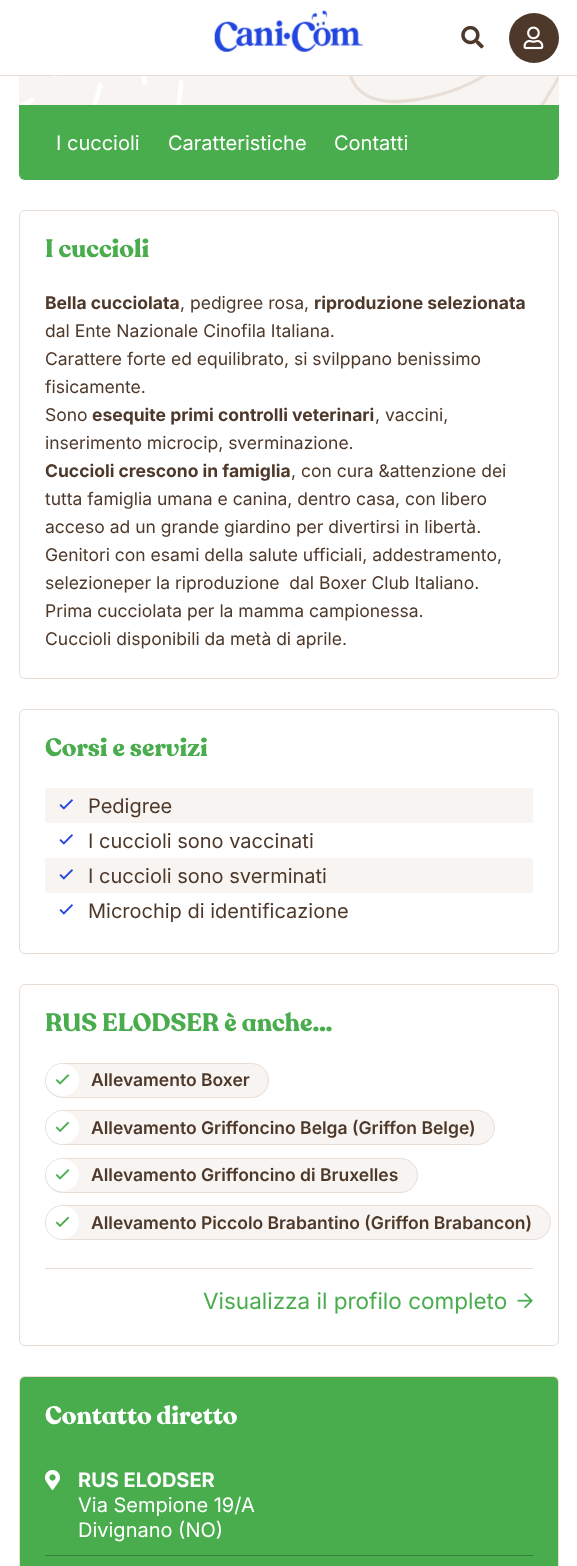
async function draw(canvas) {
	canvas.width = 577;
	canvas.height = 1566;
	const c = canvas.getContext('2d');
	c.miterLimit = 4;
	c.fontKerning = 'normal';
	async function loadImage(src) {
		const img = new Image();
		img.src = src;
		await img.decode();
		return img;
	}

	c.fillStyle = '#fff';
	c.fillRect(0, 0, 577, 1566);
	c.fillStyle = '#f7f4f1';
	c.beginPath();
	c.moveTo(19, -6);
	c.lineTo(559, -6);
	c.lineTo(559, 174);
	c.bezierCurveTo(559, 177.5, 556.5, 180, 553, 180);
	c.lineTo(25, 180);
	c.bezierCurveTo(21.5, 180, 19, 177.5, 19, 174);
	c.closePath();
	c.fill();
	c.fillStyle = '#fff';
	c.fillRect(19, 0, 540, 75);
	c.drawImage(await loadImage('img1.png'), 214, 10, 149, 42);
	c.drawImage(await loadImage('img2.png'), 461, 25, 23, 24);
	c.fillStyle = '#4d382a';
	c.beginPath();
	c.arc(534, 38, 25, 0, 2 * Math.PI);
	c.fill();
	c.drawImage(await loadImage('img3.png'), 523, 26, 21, 24);
	c.fillStyle = '#e8ded6';
	c.fillRect(0, 75, 577, 1);
	c.drawImage(await loadImage('img4.png'), 19, 76, 540, 29);
	c.fillStyle = '#49ad4e';
	c.beginPath();
	c.roundRect(19, 105, 540, 75, [0, 0, 6, 6]);
	c.fill();
	c.font = '20px Inter';
	c.fillStyle = '#fff';
	for (const [text, x, y] of [
		['I cuccioli', 56, 150],
		['Caratteristiche', 168, 150],
		['Contatti', 334, 150],
	]) {
		c.fillText(text, x, y);
	}
	c.beginPath();
	c.roundRect(19.5, 210.5, 539, 468, 5.5);
	c.strokeStyle = '#e8ded6';
	c.stroke();
	c.font = 'bold 25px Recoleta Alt';
	c.fillStyle = '#49ad4e';
	c.fillText('I cuccioli', 45, 257);
	c.font = 'bold 17.5px Inter';
	c.fillStyle = '#4d382a';
	c.fillText('Bella cucciolata', 45, 309);
	c.font = '17.5px Inter';
	c.fillText(', pedigree rosa,', 180, 309);
	c.font = 'bold 17.5px Inter';
	c.fillText('riproduzione selezionata', 314, 309);
	c.font = '17.5px Inter';
	for (const [text, x, y] of [
		['dal Ente Nazionale Cinofila Italiana.', 45, 337],
		['Carattere forte ed equilibrato, si svilppano benissimo', 45, 365],
		['fisicamente.', 45, 393],
		['Sono', 45, 421],
	]) {
		c.fillText(text, x, y);
	}
	c.font = 'bold 17.5px Inter';
	c.fillText('esequite primi controlli veterinari', 92, 421);
	c.font = '17.5px Inter';
	c.fillText(', vaccini,', 375, 421);
	c.fillText('inserimento microcip, sverminazione.', 45, 449);
	c.font = 'bold 17.5px Inter';
	c.fillText('Cuccioli crescono in famiglia', 45, 477);
	c.font = '17.5px Inter';
	for (const [text, x, y] of [
		[', con cura &attenzione dei', 291, 477],
		['tutta famiglia umana e canina, dentro casa, con libero', 45, 505],
		['acceso ad un grande giardino per divertirsi in libertà.', 45, 533],
		['Genitori con esami della salute ufficiali, addestramento,', 45, 561],
		['selezioneper la riproduzione  dal Boxer Club Italiano.', 45, 589],
		['Prima cucciolata per la mamma campionessa.', 45, 617],
		['Cuccioli disponibili da metà di aprile.', 45, 645],
	]) {
		c.fillText(text, x, y);
	}
	c.beginPath();
	c.roundRect(19.5, 709.5, 539, 244, 5.5);
	c.stroke();
	c.font = 'bold 25px Recoleta Alt';
	c.fillStyle = '#49ad4e';
	c.fillText('Corsi e servizi', 45, 756);
	c.fillStyle = '#f7f4f1';
	c.beginPath();
	c.roundRect(45, 788, 488, 35, 2.5);
	c.fill();
	c.drawImage(await loadImage('img5.png'), 59, 799, 14, 11);
	c.font = '20px Inter';
	c.fillStyle = '#4d382a';
	c.fillText('Pedigree', 88, 813);
	c.drawImage(await loadImage('img6.png'), 59, 834, 14, 11);
	c.fillText('I cuccioli sono vaccinati', 88, 848);
	c.fillStyle = '#f7f4f1';
	c.beginPath();
	c.roundRect(45, 858, 488, 35, 2.5);
	c.fill();
	c.drawImage(await loadImage('img5.png'), 59, 869, 14, 11);
	c.fillStyle = '#4d382a';
	c.fillText('I cuccioli sono sverminati', 88, 883);
	c.drawImage(await loadImage('img6.png'), 59, 904, 14, 11);
	c.fillText('Microchip di identificazione', 88, 918);
	c.beginPath();
	c.roundRect(19.5, 984.5, 539, 361, 5.5);
	c.stroke();
	c.font = 'bold 25px Recoleta Alt';
	c.fillStyle = '#49ad4e';
	c.fillText('RUS ELODSER è anche…', 45, 1031);
	c.fillStyle = '#f7f4f1';
	c.beginPath();
	c.roundRect(45.5, 1063.5, 223, 34, 17);
	c.fill();
	c.stroke();
	c.fillStyle = '#fff';
	c.beginPath();
	c.roundRect(46, 1064, 33, 32, 16);
	c.fill();
	c.drawImage(await loadImage('img7.png'), 55, 1074, 15, 11);
	c.font = '600 17.5px Inter';
	c.fillStyle = '#4d382a';
	c.fillText('Allevamento Boxer', 91, 1086);
	c.fillStyle = '#f7f4f1';
	c.beginPath();
	c.roundRect(45.5, 1110.5, 449, 34, 17);
	c.fill();
	c.stroke();
	c.fillStyle = '#fff';
	c.beginPath();
	c.arc(62.5, 1127.5, 16.5, 0, 2 * Math.PI);
	c.fill();
	c.drawImage(await loadImage('img8.png'), 55, 1121, 15, 11);
	c.fillStyle = '#4d382a';
	c.fillText('Allevamento Griffoncino Belga (Griffon Belge)', 91, 1134);
	c.fillStyle = '#f7f4f1';
	c.beginPath();
	c.roundRect(45.5, 1158.5, 372, 34, 17);
	c.fill();
	c.stroke();
	c.fillStyle = '#fff';
	c.beginPath();
	c.roundRect(46, 1159, 33, 32, 16);
	c.fill();
	c.drawImage(await loadImage('img7.png'), 55, 1169, 15, 11);
	c.fillStyle = '#4d382a';
	c.fillText('Allevamento Griffoncino di Bruxelles', 91, 1181);
	c.fillStyle = '#f7f4f1';
	c.beginPath();
	c.roundRect(45.5, 1205.5, 505, 34, 17);
	c.fill();
	c.stroke();
	c.fillStyle = '#fff';
	c.beginPath();
	c.arc(62.5, 1222.5, 16.5, 0, 2 * Math.PI);
	c.fill();
	c.drawImage(await loadImage('img8.png'), 55, 1216, 15, 11);
	c.fillStyle = '#4d382a';
	c.fillText('Allevamento Piccolo Brabantino (Griffon Brabancon)', 91, 1229);
	c.fillStyle = '#e8ded6';
	c.fillRect(45, 1268, 488, 1);
	c.font = '22.5px Inter';
	c.fillStyle = '#49ad4e';
	c.fillText('Visualizza il profilo completo', 203, 1309);
	c.drawImage(await loadImage('img9.png'), 517, 1293, 16, 16);
	c.beginPath();
	c.roundRect(19.5, 1376.5, 539, 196, 5.5);
	c.fill();
	c.stroke();
	c.font = 'bold 25px Recoleta Alt';
	c.fillStyle = '#fff';
	c.fillText('Contatto diretto', 45, 1424);
	c.fillStyle = '#37823b';
	c.fillRect(45, 1555, 488, 1);
	c.drawImage(await loadImage('img10.png'), 45, 1470, 15, 20);
	c.font = 'bold 20px Inter';
	c.fillStyle = '#fff';
	c.fillText('RUS ELODSER', 78, 1487);
	c.font = '20px Inter';
	c.fillText('Via Sempione 19/A', 78, 1512);
	c.fillText('Divignano (NO)', 78, 1537);
}

draw(document.querySelector('canvas'));
